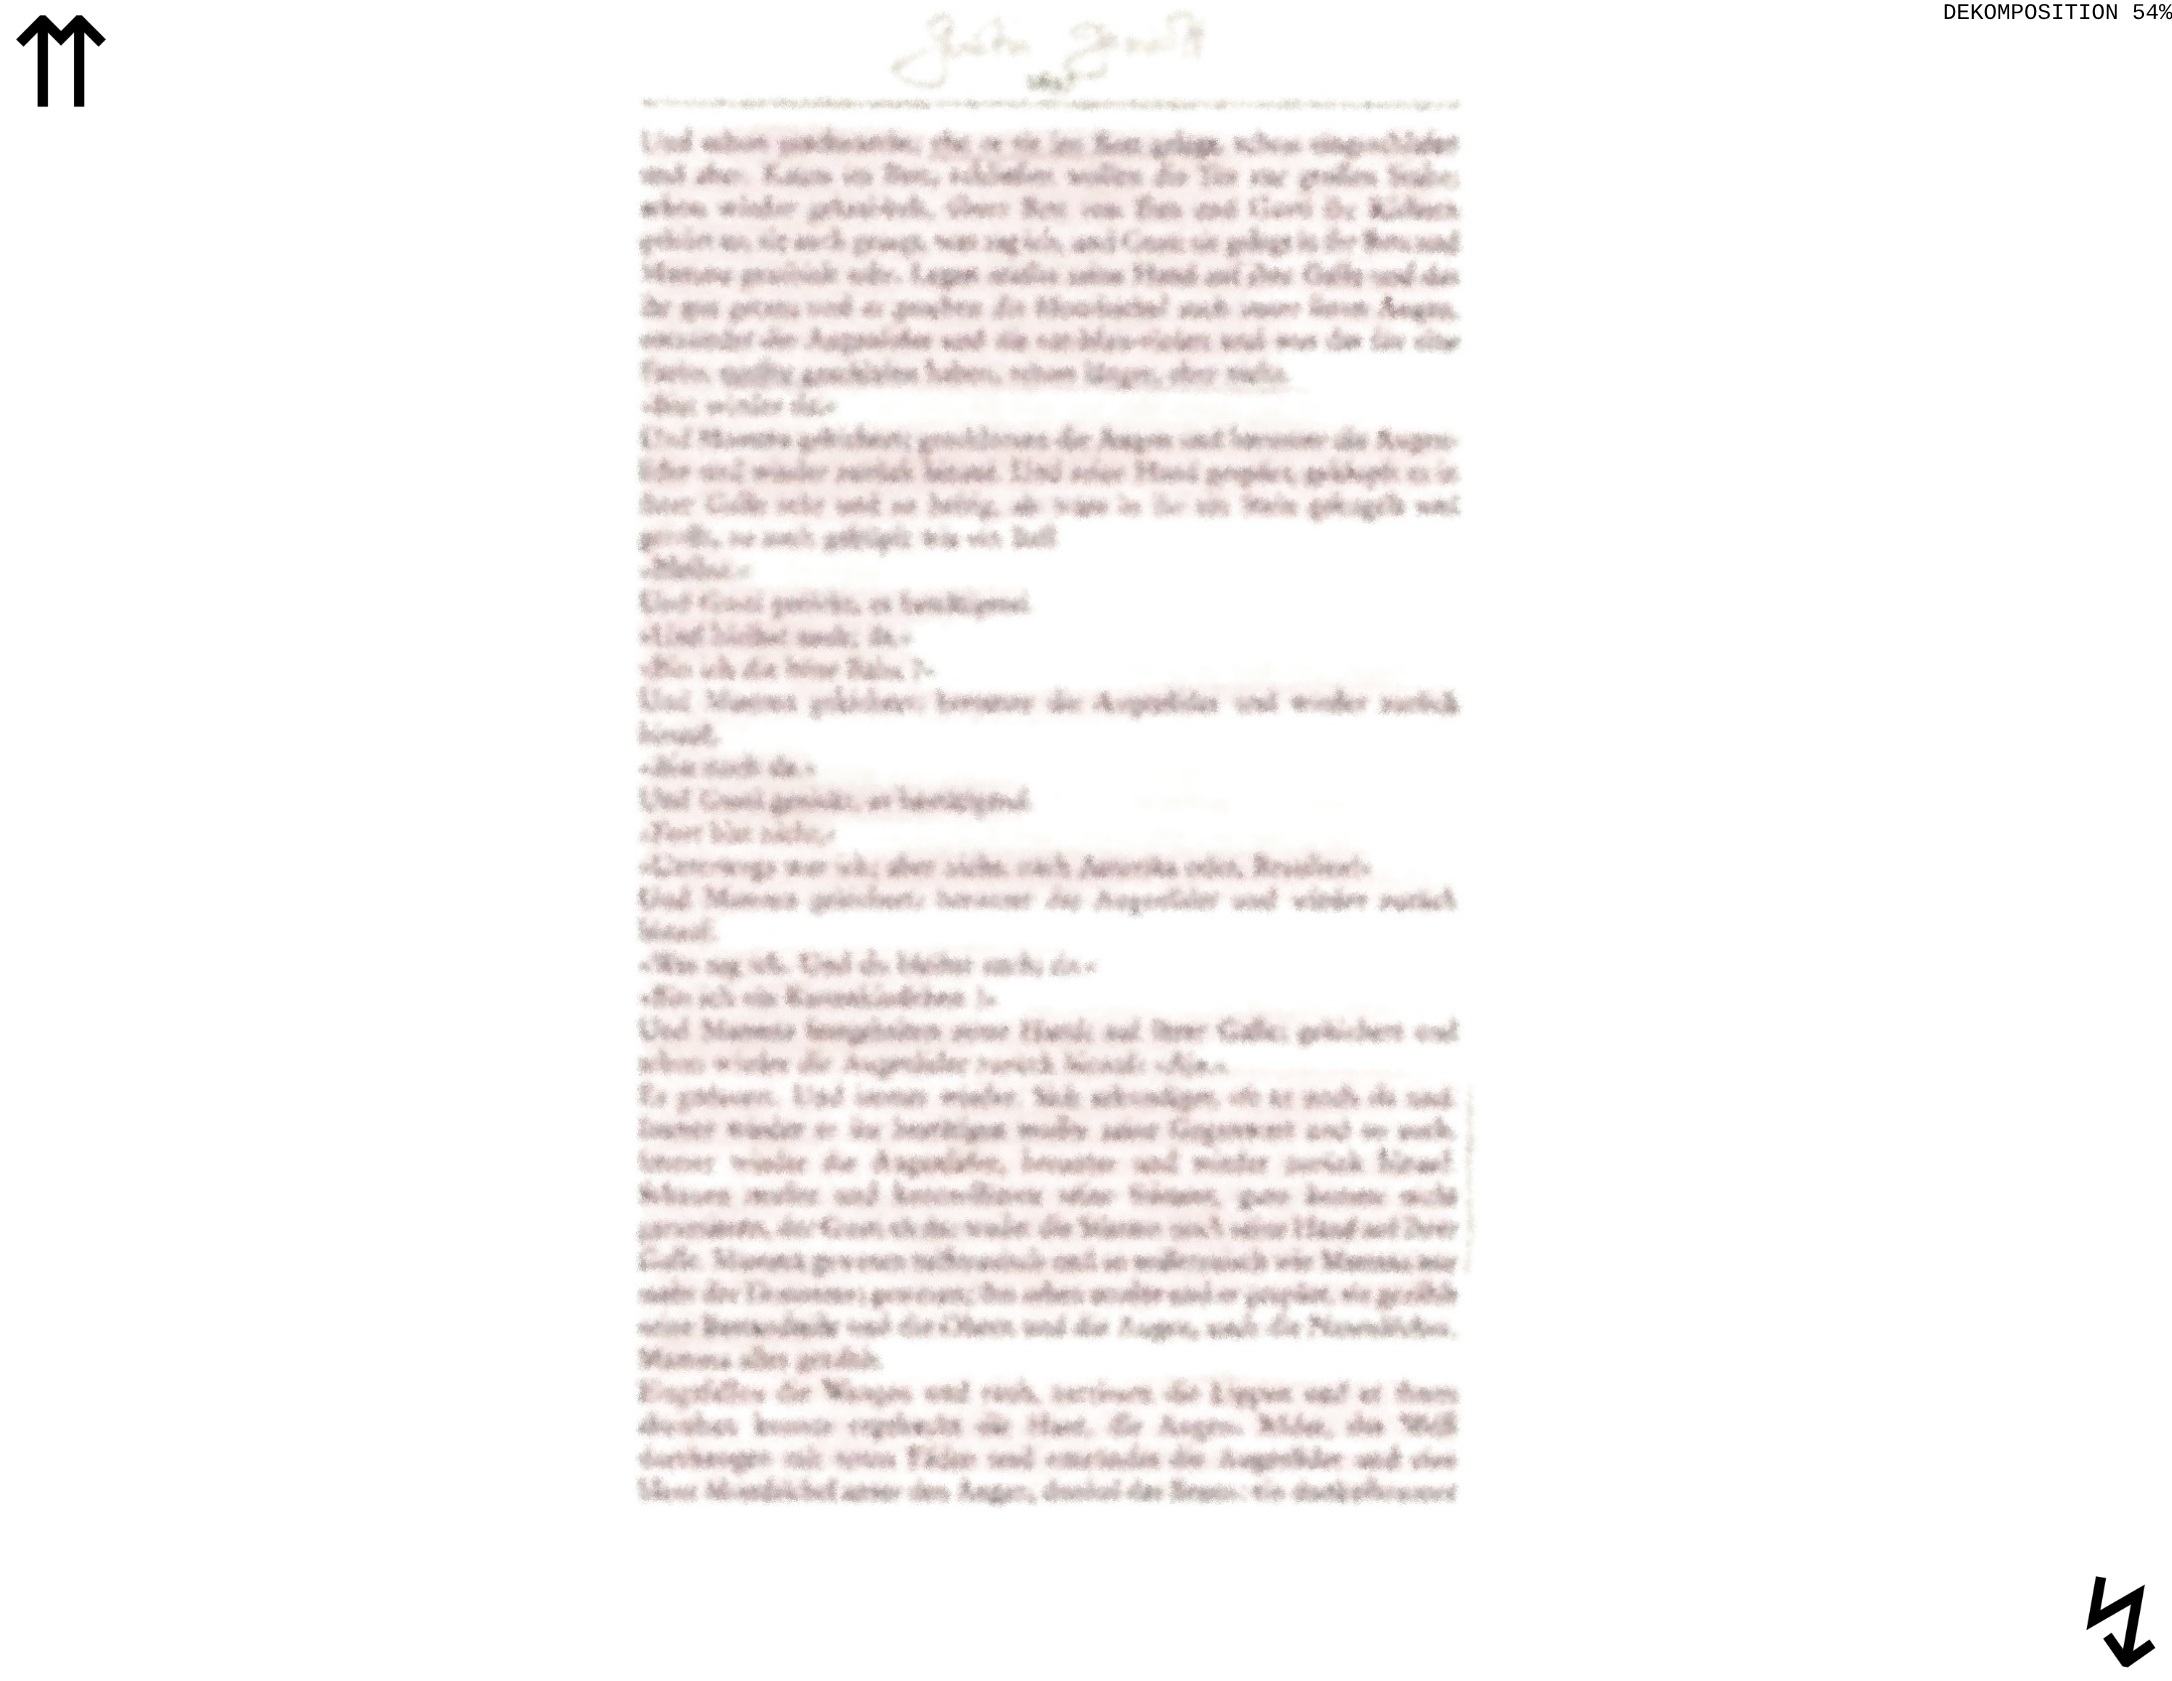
async function draw(canvas) {
	canvas.width = 2172;
	canvas.height = 1681;
	const c = canvas.getContext('2d');
	c.miterLimit = 4;
	c.fontKerning = 'normal';
	async function loadImage(src) {
		const img = new Image();
		img.src = src;
		await img.decode();
		return img;
	}

	c.fillStyle = '#fff';
	c.fillRect(0, 0, 2172, 1681);
	c.drawImage(await loadImage('img1.png'), 633, 8, 846, 1503);
	c.font = '22.5px Liberation Mono';
	c.fillStyle = '#000';
	c.fillText('DEKOMPOSITION 54%', 1943, 19);
	c.drawImage(await loadImage('img2.png'), 16, 15, 90, 93);
	c.drawImage(await loadImage('img3.png'), 2086, 1576, 70, 92);
}

draw(document.querySelector('canvas'));
